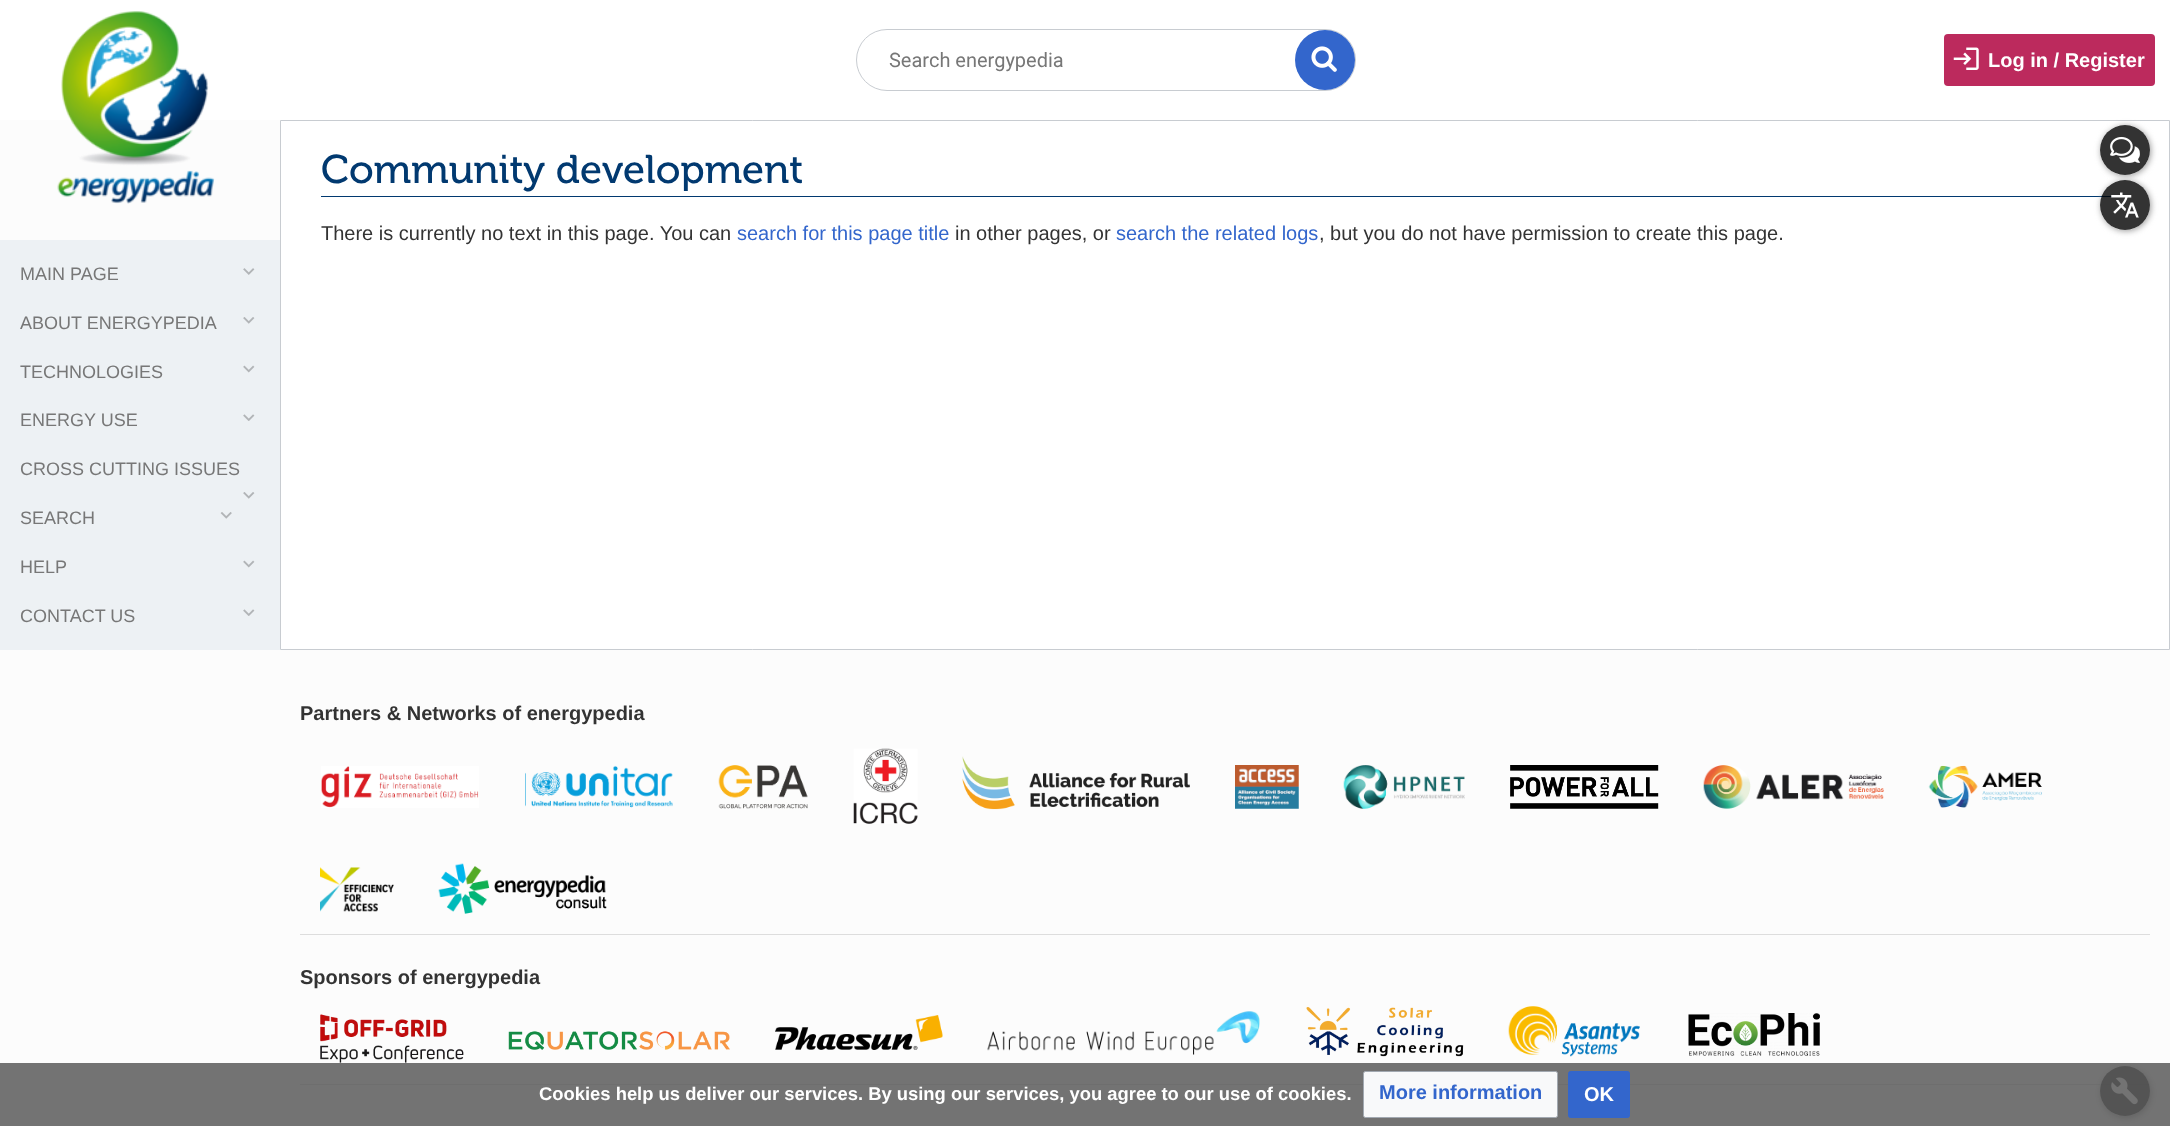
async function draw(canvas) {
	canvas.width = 2170;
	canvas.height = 1126;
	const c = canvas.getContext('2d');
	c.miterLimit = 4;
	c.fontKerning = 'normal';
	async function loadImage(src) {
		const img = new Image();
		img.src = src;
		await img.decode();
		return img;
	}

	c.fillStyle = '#fcfcfc';
	c.fillRect(0, 0, 2170, 1126);
	c.fillStyle = '#fff';
	c.fillRect(0, 0, 2170, 120);
	c.drawImage(await loadImage('img1.png'), 57, 11, 158, 193);
	c.beginPath();
	c.roundRect(856.5, 29.5, 499, 61, 30.5);
	c.strokeStyle = '#c8ccd1';
	c.stroke();
	c.font = '20px Roboto';
	c.fillStyle = '#777';
	c.fillText('Search energypedia', 889, 67);
	c.fillStyle = '#36c';
	c.beginPath();
	c.arc(1325, 60, 30, 0, 2 * Math.PI);
	c.fill();
	c.drawImage(await loadImage('img2.png'), 1311, 46, 26, 26);
	c.fillStyle = '#bc2a5d';
	c.beginPath();
	c.roundRect(1944, 34, 211, 52, 4);
	c.fill();
	c.drawImage(await loadImage('img3.png'), 1953, 47, 26, 23);
	c.font = 'bold 20px Liberation Sans';
	c.fillStyle = '#fff';
	c.fillText('Log in / Register', 1988, 67);
	c.fillStyle = '#edf1f4';
	c.fillRect(0, 240, 280, 410);
	c.font = '18px Liberation Sans';
	c.fillStyle = '#777';
	c.fillText('MAIN PAGE', 20, 280);
	c.drawImage(await loadImage('img4.png'), 243, 268, 12, 7);
	c.fillText('ABOUT ENERGYPEDIA', 20, 329);
	c.drawImage(await loadImage('img5.png'), 243, 317, 12, 7);
	c.fillText('TECHNOLOGIES', 20, 378);
	c.drawImage(await loadImage('img6.png'), 243, 365, 12, 8);
	c.fillText('ENERGY USE', 20, 426);
	c.drawImage(await loadImage('img7.png'), 243, 414, 12, 7);
	c.fillText('CROSS CUTTING ISSUES', 20, 475);
	c.drawImage(await loadImage('img5.png'), 243, 492, 12, 7);
	c.fillText('SEARCH', 20, 524);
	c.drawImage(await loadImage('img8.png'), 220, 512, 12, 7);
	c.fillText('HELP', 20, 573);
	c.drawImage(await loadImage('img6.png'), 243, 560, 12, 8);
	c.fillText('CONTACT US', 20, 622);
	c.drawImage(await loadImage('img7.png'), 243, 609, 12, 7);
	c.fillStyle = '#fff';
	c.beginPath();
	c.rect(280.5, 120.5, 1889, 529);
	c.fill();
	c.stroke();
	c.fillStyle = '#013970';
	c.fillRect(321, 196, 1791, 1);
	c.font = '40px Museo';
	c.fillText('Community development', 321, 183);
	c.font = '20px Liberation Sans';
	c.fillStyle = '#333';
	c.fillText('There is currently no text in this page. You can', 321, 240);
	c.fillStyle = '#36c';
	c.fillText('search for this page title', 737, 240);
	c.fillStyle = '#333';
	c.fillText('in other pages, or', 955, 240);
	c.fillStyle = '#36c';
	c.fillText('search the related logs', 1116, 240);
	c.fillStyle = '#333';
	c.fillText(', but you do not have permission to create this page.', 1319, 240);
	c.fillStyle = '#ddd';
	c.fillRect(300, 1084, 1850, 1);
	c.save();
	c.beginPath();
	c.moveTo(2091, 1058);
	c.lineTo(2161, 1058);
	c.lineTo(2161, 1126);
	c.lineTo(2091, 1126);
	c.closePath();
	c.moveTo(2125, 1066);
	c.bezierCurveTo(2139, 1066, 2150, 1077, 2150, 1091);
	c.bezierCurveTo(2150, 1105, 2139, 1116, 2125, 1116);
	c.bezierCurveTo(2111, 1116, 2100, 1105, 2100, 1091);
	c.bezierCurveTo(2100, 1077, 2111, 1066, 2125, 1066);
	c.closePath();
	c.clip('evenodd');
	c.fillStyle = '#999';
	c.filter = 'blur(3px)';
	c.beginPath();
	c.roundRect(2101, 1068, 50, 50, 25);
	c.fill();
	c.filter = 'none';
	c.restore();
	c.fillStyle = '#000000cc';
	c.beginPath();
	c.arc(2125, 1091, 25, 0, 2 * Math.PI);
	c.fill();
	c.drawImage(await loadImage('img11.png'), 2111, 1077, 27, 28);
	c.fillStyle = '#5a5a5ad9';
	c.fillRect(0, 1063, 2170, 63);
	c.font = 'bold 18.4px Liberation Sans';
	c.fillStyle = '#fff';
	c.fillText('Cookies help us deliver our services. By using our services, you agree to our use of cookies.', 539, 1100);
	c.fillStyle = '#f8f9fa';
	c.beginPath();
	c.roundRect(1363.5, 1071.5, 194, 46, 2);
	c.fill();
	c.strokeStyle = '#a2a9b1';
	c.stroke();
	c.font = 'bold 20px Liberation Sans';
	c.fillStyle = '#36c';
	c.fillText('More information', 1379, 1099);
	c.beginPath();
	c.roundRect(1568.5, 1071.5, 61, 46, 2);
	c.fill();
	c.strokeStyle = '#36c';
	c.stroke();
	c.fillStyle = '#fff';
	c.fillText('OK', 1584, 1101);
	c.save();
	c.beginPath();
	c.moveTo(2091, 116);
	c.lineTo(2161, 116);
	c.lineTo(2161, 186);
	c.lineTo(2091, 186);
	c.closePath();
	c.moveTo(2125, 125);
	c.bezierCurveTo(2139, 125, 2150, 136, 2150, 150);
	c.bezierCurveTo(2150, 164, 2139, 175, 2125, 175);
	c.bezierCurveTo(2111, 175, 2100, 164, 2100, 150);
	c.bezierCurveTo(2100, 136, 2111, 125, 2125, 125);
	c.closePath();
	c.clip('evenodd');
	c.fillStyle = '#999';
	c.filter = 'blur(3px)';
	c.beginPath();
	c.roundRect(2101, 126, 50, 50, 25);
	c.fill();
	c.filter = 'none';
	c.restore();
	c.fillStyle = '#000000cc';
	c.beginPath();
	c.arc(2125, 150, 25, 0, 2 * Math.PI);
	c.fill();
	c.drawImage(await loadImage('img9.png'), 2110, 136, 30, 27);
	c.save();
	c.beginPath();
	c.moveTo(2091, 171);
	c.lineTo(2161, 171);
	c.lineTo(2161, 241);
	c.lineTo(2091, 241);
	c.closePath();
	c.moveTo(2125, 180);
	c.bezierCurveTo(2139, 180, 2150, 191, 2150, 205);
	c.bezierCurveTo(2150, 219, 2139, 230, 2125, 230);
	c.bezierCurveTo(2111, 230, 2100, 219, 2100, 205);
	c.bezierCurveTo(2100, 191, 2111, 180, 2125, 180);
	c.closePath();
	c.clip('evenodd');
	c.fillStyle = '#999';
	c.filter = 'blur(3px)';
	c.beginPath();
	c.roundRect(2101, 181, 50, 50, 25);
	c.fill();
	c.filter = 'none';
	c.restore();
	c.beginPath();
	c.arc(2125, 205, 25, 0, 2 * Math.PI);
	c.fill();
	c.drawImage(await loadImage('img10.png'), 2111, 192, 28, 26);
	c.fillStyle = '#ddd';
	c.fillRect(300, 934, 1850, 1);
	c.fillStyle = '#333';
	c.fillText('Partners & Networks of energypedia', 300, 720);
	c.drawImage(await loadImage('img12.png'), 321, 766, 158, 42);
	c.drawImage(await loadImage('img13.png'), 525, 765, 148, 43);
	c.drawImage(await loadImage('img14.png'), 718, 765, 90, 44);
	c.drawImage(await loadImage('img15.png'), 853, 748, 65, 76);
	c.drawImage(await loadImage('img16.png'), 962, 756, 228, 54);
	c.drawImage(await loadImage('img17.png'), 1235, 765, 64, 44);
	c.drawImage(await loadImage('img18.png'), 1343, 765, 122, 44);
	c.drawImage(await loadImage('img19.png'), 1510, 765, 149, 44);
	c.drawImage(await loadImage('img20.png'), 1703, 765, 181, 44);
	c.drawImage(await loadImage('img21.png'), 1928, 765, 114, 43);
	c.drawImage(await loadImage('img22.png'), 320, 867, 74, 45);
	c.drawImage(await loadImage('img23.png'), 438, 863, 169, 51);
	c.fillText('Sponsors of energypedia', 300, 984);
	c.drawImage(await loadImage('img24.png'), 320, 1014, 144, 49);
	c.drawImage(await loadImage('img25.png'), 508, 1031, 222, 19);
	c.drawImage(await loadImage('img26.png'), 775, 1015, 168, 35);
	c.drawImage(await loadImage('img27.png'), 987, 1011, 273, 44);
	c.drawImage(await loadImage('img28.png'), 1306, 1007, 158, 50);
	c.drawImage(await loadImage('img29.png'), 1508, 1006, 132, 51);
	c.drawImage(await loadImage('img30.png'), 1688, 1013, 132, 43);
}

draw(document.querySelector('canvas'));
